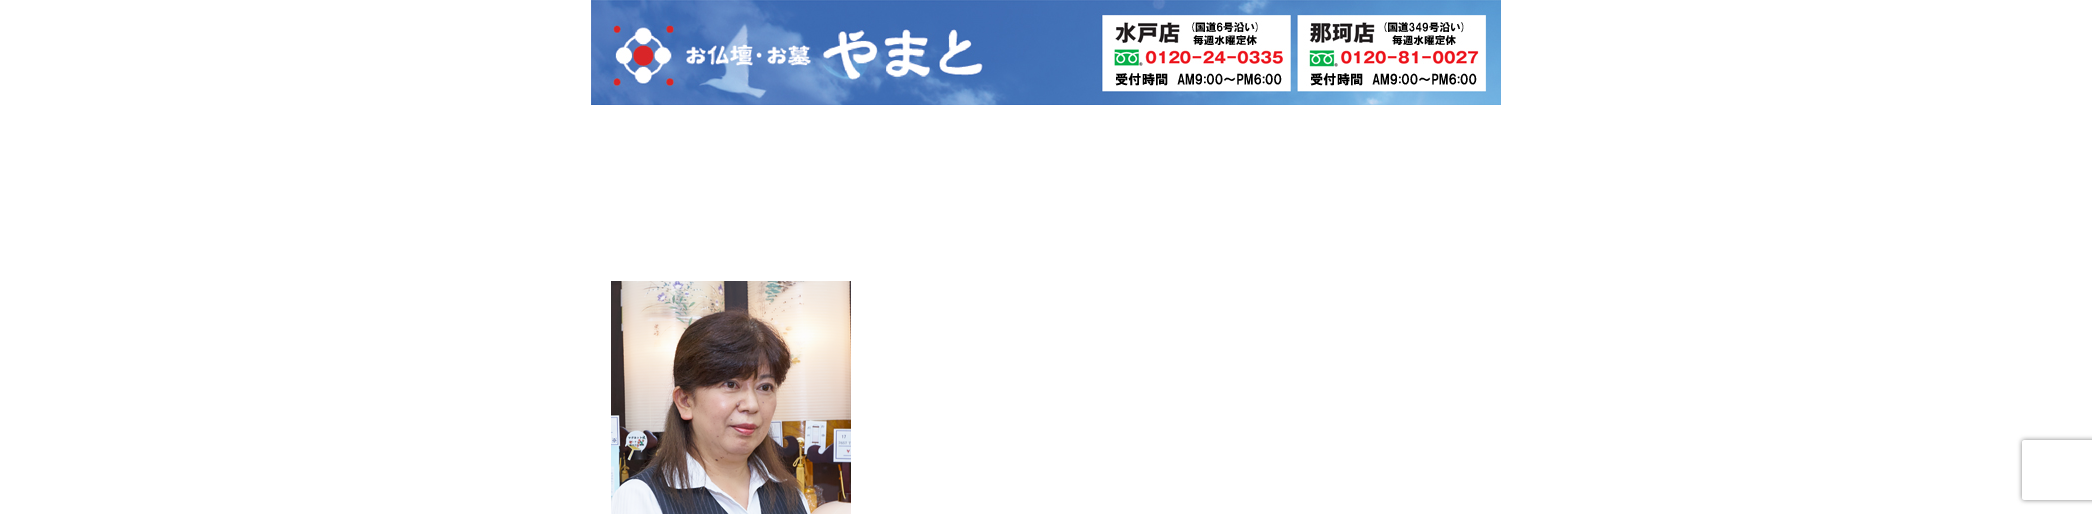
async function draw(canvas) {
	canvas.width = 2092;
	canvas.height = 514;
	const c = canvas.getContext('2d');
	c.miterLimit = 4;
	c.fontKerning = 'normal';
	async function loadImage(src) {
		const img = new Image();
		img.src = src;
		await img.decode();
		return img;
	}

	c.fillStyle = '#fff';
	c.fillRect(0, 0, 2092, 514);
	c.drawImage(await loadImage('img1.png'), 591, 0, 910, 105);
	c.drawImage(await loadImage('img2.png'), 611, 281, 240, 233);
	c.save();
	c.beginPath();
	c.moveTo(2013, 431);
	c.lineTo(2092, 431);
	c.lineTo(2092, 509);
	c.lineTo(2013, 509);
	c.closePath();
	c.moveTo(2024, 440);
	c.lineTo(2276, 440);
	c.bezierCurveTo(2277, 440, 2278, 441, 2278, 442);
	c.lineTo(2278, 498);
	c.bezierCurveTo(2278, 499, 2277, 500, 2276, 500);
	c.lineTo(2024, 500);
	c.bezierCurveTo(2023, 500, 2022, 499, 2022, 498);
	c.lineTo(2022, 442);
	c.bezierCurveTo(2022, 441, 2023, 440, 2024, 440);
	c.closePath();
	c.clip('evenodd');
	c.fillStyle = '#808080';
	c.filter = 'blur(2.5px)';
	c.beginPath();
	c.roundRect(2022, 440, 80, 60, 2);
	c.fill();
	c.filter = 'none';
	c.restore();
}

draw(document.querySelector('canvas'));
